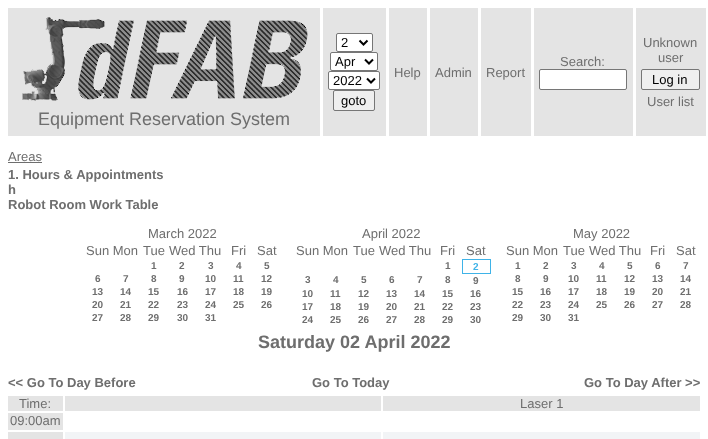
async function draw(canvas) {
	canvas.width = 708;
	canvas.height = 439;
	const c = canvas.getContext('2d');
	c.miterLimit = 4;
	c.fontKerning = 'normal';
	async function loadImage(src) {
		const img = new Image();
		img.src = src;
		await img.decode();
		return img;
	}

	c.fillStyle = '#fff';
	c.fillRect(0, 0, 708, 439);
	c.fillStyle = '#e4e4e4';
	c.fillRect(323, 8, 63, 128);
	c.fillStyle = '#fff';
	c.beginPath();
	c.roundRect(336.5, 33.5, 36, 18, 1.5);
	c.fill();
	c.strokeStyle = '#767676';
	c.stroke();
	c.beginPath();
	c.moveTo(359.5, 40.5);
	c.lineTo(363.5, 44.5);
	c.lineTo(367.5, 40.5);
	c.strokeStyle = '#000';
	c.lineWidth = 2;
	c.stroke();
	c.font = '13px Liberation Sans';
	c.fillStyle = '#000';
	c.fillText('2', 341, 47);
	c.fillStyle = '#fff';
	c.beginPath();
	c.roundRect(330.5, 52.5, 47, 18, 1.5);
	c.fill();
	c.strokeStyle = '#767676';
	c.lineWidth = 1;
	c.stroke();
	c.beginPath();
	c.moveTo(365, 59.5);
	c.lineTo(369, 63.5);
	c.lineTo(373, 59.5);
	c.strokeStyle = '#000';
	c.lineWidth = 2;
	c.stroke();
	c.fillStyle = '#000';
	c.fillText('Apr', 335, 66);
	c.fillStyle = '#fff';
	c.beginPath();
	c.roundRect(328.5, 71.5, 51, 18, 1.5);
	c.fill();
	c.strokeStyle = '#767676';
	c.lineWidth = 1;
	c.stroke();
	c.beginPath();
	c.moveTo(367, 78.5);
	c.lineTo(371, 82.5);
	c.lineTo(375, 78.5);
	c.strokeStyle = '#000';
	c.lineWidth = 2;
	c.stroke();
	c.fillStyle = '#000';
	c.fillText('2022', 333, 85);
	c.fillStyle = '#efefef';
	c.beginPath();
	c.roundRect(333.5, 90.5, 41, 20, 1.5);
	c.fill();
	c.strokeStyle = '#767676';
	c.lineWidth = 1;
	c.stroke();
	c.fillStyle = '#000';
	c.fillText('goto', 341, 105);
	c.fillStyle = '#e4e4e4';
	c.fillRect(534, 8, 99, 128);
	c.fillStyle = '#6e6e6e';
	c.fillText('Search:', 560, 66);
	c.fillStyle = '#fff';
	c.beginPath();
	c.roundRect(539.5, 69.5, 87, 20, 1.5);
	c.fill();
	c.stroke();
	c.fillStyle = '#e4e4e4';
	c.fillRect(636, 8, 70, 128);
	c.fillStyle = '#6e6e6e';
	c.fillText('Unknown', 643, 47);
	c.fillText('user', 658, 62);
	c.fillStyle = '#efefef';
	c.beginPath();
	c.roundRect(641.5, 69.5, 58, 20, 1.5);
	c.fill();
	c.stroke();
	c.fillStyle = '#000';
	c.fillText('Log in', 652, 84);
	c.fillStyle = '#6e6e6e';
	c.fillText('User list', 647, 106);
	c.fillStyle = '#e4e4e4';
	c.fillRect(389, 8, 38, 128);
	c.fillStyle = '#6e6e6e';
	c.fillText('Help', 394, 77);
	c.fillStyle = '#e4e4e4';
	c.fillRect(430, 8, 48, 128);
	c.fillStyle = '#6e6e6e';
	c.fillText('Admin', 435, 77);
	c.fillStyle = '#e4e4e4';
	c.fillRect(481, 8, 50, 128);
	c.fillStyle = '#6e6e6e';
	c.fillText('Report', 486, 77);
	c.fillStyle = '#e4e4e4';
	c.fillRect(8, 8, 312, 128);
	c.drawImage(await loadImage('img1.png'), 22, 17, 286, 84);
	c.font = '18px Liberation Sans';
	c.fillStyle = '#6e6e6e';
	c.fillText('Equipment Reservation System', 38, 125);
	c.font = '13px Liberation Sans';
	c.fillText('Areas', 8, 161);
	c.fillRect(8, 162, 34, 1);
	c.font = 'bold 13px Liberation Sans';
	for (const [text, x, y] of [
		['1. Hours & Appointments', 8, 179],
		['h', 8, 194],
		['Robot Room Work Table', 8, 209],
	]) {
		c.fillText(text, x, y);
	}
	c.font = '13px Liberation Sans';
	for (const [text, x, y] of [
		['March 2022', 148, 238],
		['Sun Mon', 86, 255],
		['Tue', 143, 255],
		['Wed Thu', 169, 255],
		['Fri', 231, 255],
		['Sat', 257, 255],
	]) {
		c.fillText(text, x, y);
	}
	c.font = 'bold 10px Liberation Sans';
	for (const [text, x, y] of [
		['1', 151, 269],
		['2', 179, 269],
		['3', 208, 269],
		['4', 236, 269],
		['5', 264, 269],
		['6', 95, 282],
		['7', 123, 282],
		['8', 151, 282],
		['9', 179, 282],
		['10', 205, 282],
		['11', 233, 282],
		['12', 261, 282],
		['13', 92, 295],
		['14', 120, 295],
		['15', 148, 295],
		['16', 177, 295],
		['17', 205, 295],
		['18', 233, 295],
		['19', 261, 295],
		['20', 92, 308],
		['21', 120, 308],
		['22', 148, 308],
		['23', 177, 308],
		['24', 205, 308],
		['25', 233, 308],
		['26', 261, 308],
		['27', 92, 321],
		['28', 120, 321],
		['29', 148, 321],
		['30', 177, 321],
		['31', 205, 321],
	]) {
		c.fillText(text, x, y);
	}
	c.font = '13px Liberation Sans';
	for (const [text, x, y] of [
		['April 2022', 362, 238],
		['Sun Mon', 296, 255],
		['Tue', 353, 255],
		['Wed Thu', 379, 255],
		['Fri', 440, 255],
		['Sat', 466, 255],
	]) {
		c.fillText(text, x, y);
	}
	c.font = 'bold 10px Liberation Sans';
	c.fillText('1', 445, 269);
	for (const [x, y, w, h, color] of [
		[462, 259, 29, 1, '#3fb3e8'],
		[490, 259, 1, 15, '#3fb3e8'],
		[462, 273, 29, 1, '#3fb3e8'],
		[462, 259, 1, 15, '#3fb3e8'],
	]) {
		c.fillStyle = color;
		c.fillRect(x, y, w, h);
	}
	c.fillText('2', 473, 270);
	c.fillStyle = '#6e6e6e';
	for (const [text, x, y] of [
		['3', 305, 283],
		['4', 333, 283],
		['5', 361, 283],
		['6', 389, 283],
		['7', 417, 283],
		['8', 445, 283],
		['9', 473, 284],
		['10', 302, 297],
		['11', 330, 297],
		['12', 358, 297],
		['13', 386, 297],
		['14', 414, 297],
		['15', 442, 297],
		['16', 470, 297],
		['17', 302, 310],
		['18', 330, 310],
		['19', 358, 310],
		['20', 386, 310],
		['21', 414, 310],
		['22', 442, 310],
		['23', 470, 310],
		['24', 302, 323],
		['25', 330, 323],
		['26', 358, 323],
		['27', 386, 323],
		['28', 414, 323],
		['29', 442, 323],
		['30', 470, 323],
	]) {
		c.fillText(text, x, y);
	}
	c.font = '13px Liberation Sans';
	for (const [text, x, y] of [
		['May 2022', 573, 238],
		['Sun Mon', 506, 255],
		['Tue', 563, 255],
		['Wed Thu', 589, 255],
		['Fri', 650, 255],
		['Sat', 676, 255],
	]) {
		c.fillText(text, x, y);
	}
	c.font = 'bold 10px Liberation Sans';
	for (const [text, x, y] of [
		['1', 515, 269],
		['2', 543, 269],
		['3', 571, 269],
		['4', 599, 269],
		['5', 627, 269],
		['6', 655, 269],
		['7', 683, 269],
		['8', 515, 282],
		['9', 543, 282],
		['10', 568, 282],
		['11', 596, 282],
		['12', 624, 282],
		['13', 652, 282],
		['14', 680, 282],
		['15', 512, 295],
		['16', 540, 295],
		['17', 568, 295],
		['18', 596, 295],
		['19', 624, 295],
		['20', 652, 295],
		['21', 680, 295],
		['22', 512, 308],
		['23', 540, 308],
		['24', 568, 308],
		['25', 596, 308],
		['26', 624, 308],
		['27', 652, 308],
		['28', 680, 308],
		['29', 512, 321],
		['30', 540, 321],
		['31', 568, 321],
	]) {
		c.fillText(text, x, y);
	}
	c.font = 'bold 18px Liberation Sans';
	c.fillText('Saturday 02 April 2022', 258, 348);
	c.font = 'bold 13px Liberation Sans';
	for (const [text, x, y] of [
		['<< Go To Day Before', 8, 387],
		['Go To Today', 312, 387],
		['Go To Day After >>', 584, 387],
	]) {
		c.fillText(text, x, y);
	}
	c.fillStyle = '#e4e4e4';
	c.fillRect(8, 396, 55, 15);
	c.font = '13px Liberation Sans';
	c.fillStyle = '#6e6e6e';
	c.fillText('Time:', 19, 408);
	c.fillStyle = '#e4e4e4';
	c.fillRect(65, 396, 316, 15);
	c.fillRect(383, 396, 317, 15);
	c.fillStyle = '#6e6e6e';
	c.fillText('Laser 1', 520, 408);
	c.fillStyle = '#e4e4e4';
	c.fillRect(8, 413, 55, 17);
	c.fillStyle = '#6e6e6e';
	c.fillText('09:00am', 10, 425);
	for (const [x, y, w, h, color] of [
		[8, 432, 55, 7, '#e4e4e4'],
		[65, 432, 316, 7, '#f2f4f6'],
		[383, 432, 317, 7, '#f2f4f6'],
	]) {
		c.fillStyle = color;
		c.fillRect(x, y, w, h);
	}
}

draw(document.querySelector('canvas'));
